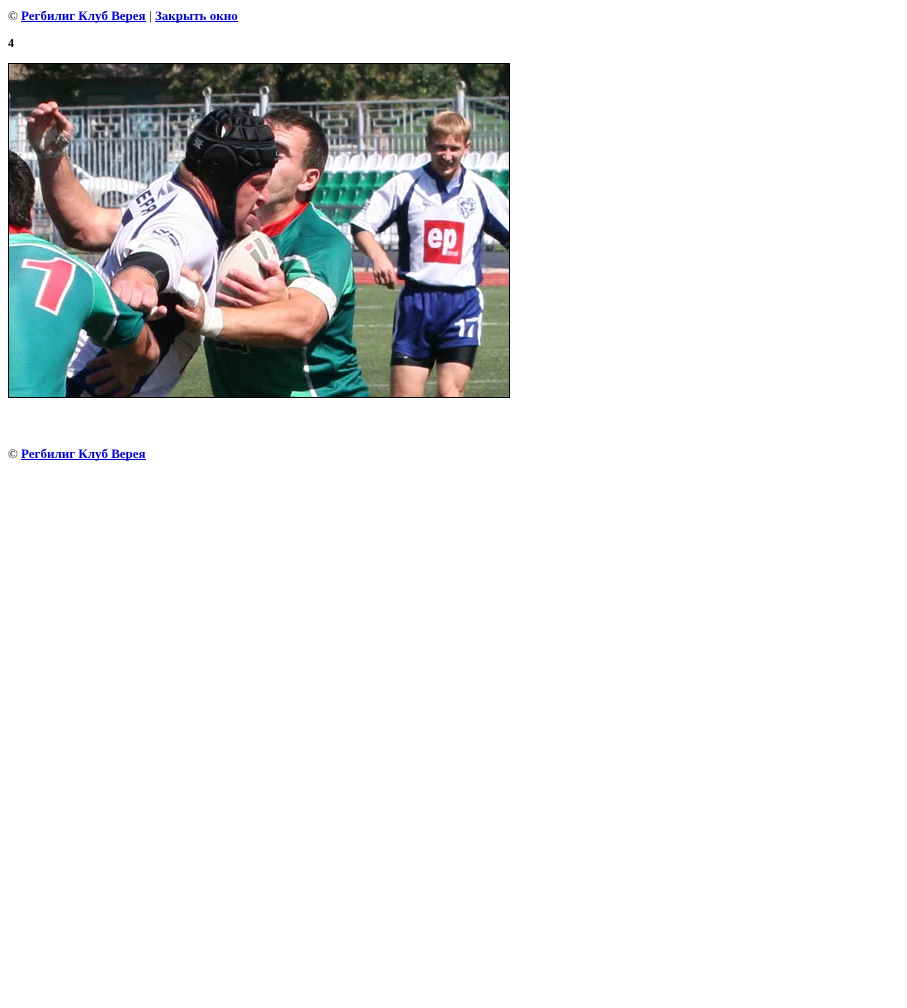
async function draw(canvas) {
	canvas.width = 907;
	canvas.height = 1008;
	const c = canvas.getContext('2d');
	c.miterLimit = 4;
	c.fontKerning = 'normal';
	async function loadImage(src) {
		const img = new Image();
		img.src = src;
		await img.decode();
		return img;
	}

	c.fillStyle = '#fff';
	c.fillRect(0, 0, 907, 1008);
	c.font = '13px Liberation Serif';
	c.fillStyle = '#000';
	c.fillText('©', 8, 20);
	c.fillStyle = '#00c';
	c.fillRect(21, 21, 125, 1);
	c.font = 'bold 13px Liberation Serif';
	c.fillText('Регбилиг Клуб Верея', 21, 20);
	c.font = '13px Liberation Serif';
	c.fillStyle = '#000';
	c.fillText('|', 149, 20);
	c.fillStyle = '#00c';
	c.fillRect(155, 21, 83, 1);
	c.font = 'bold 13px Liberation Serif';
	c.fillText('Закрыть окно', 155, 20);
	c.font = 'bold 12px Liberation Serif';
	c.fillStyle = '#000';
	c.fillText('4', 8, 47);
	c.strokeStyle = '#000';
	c.strokeRect(8.5, 63.5, 501, 334);
	c.drawImage(await loadImage('img1.png'), 9, 64, 500, 333);
	c.font = '13px Liberation Serif';
	c.fillText('©', 8, 458);
	c.fillStyle = '#00c';
	c.fillRect(21, 459, 125, 1);
	c.font = 'bold 13px Liberation Serif';
	c.fillText('Регбилиг Клуб Верея', 21, 458);
}

draw(document.querySelector('canvas'));
